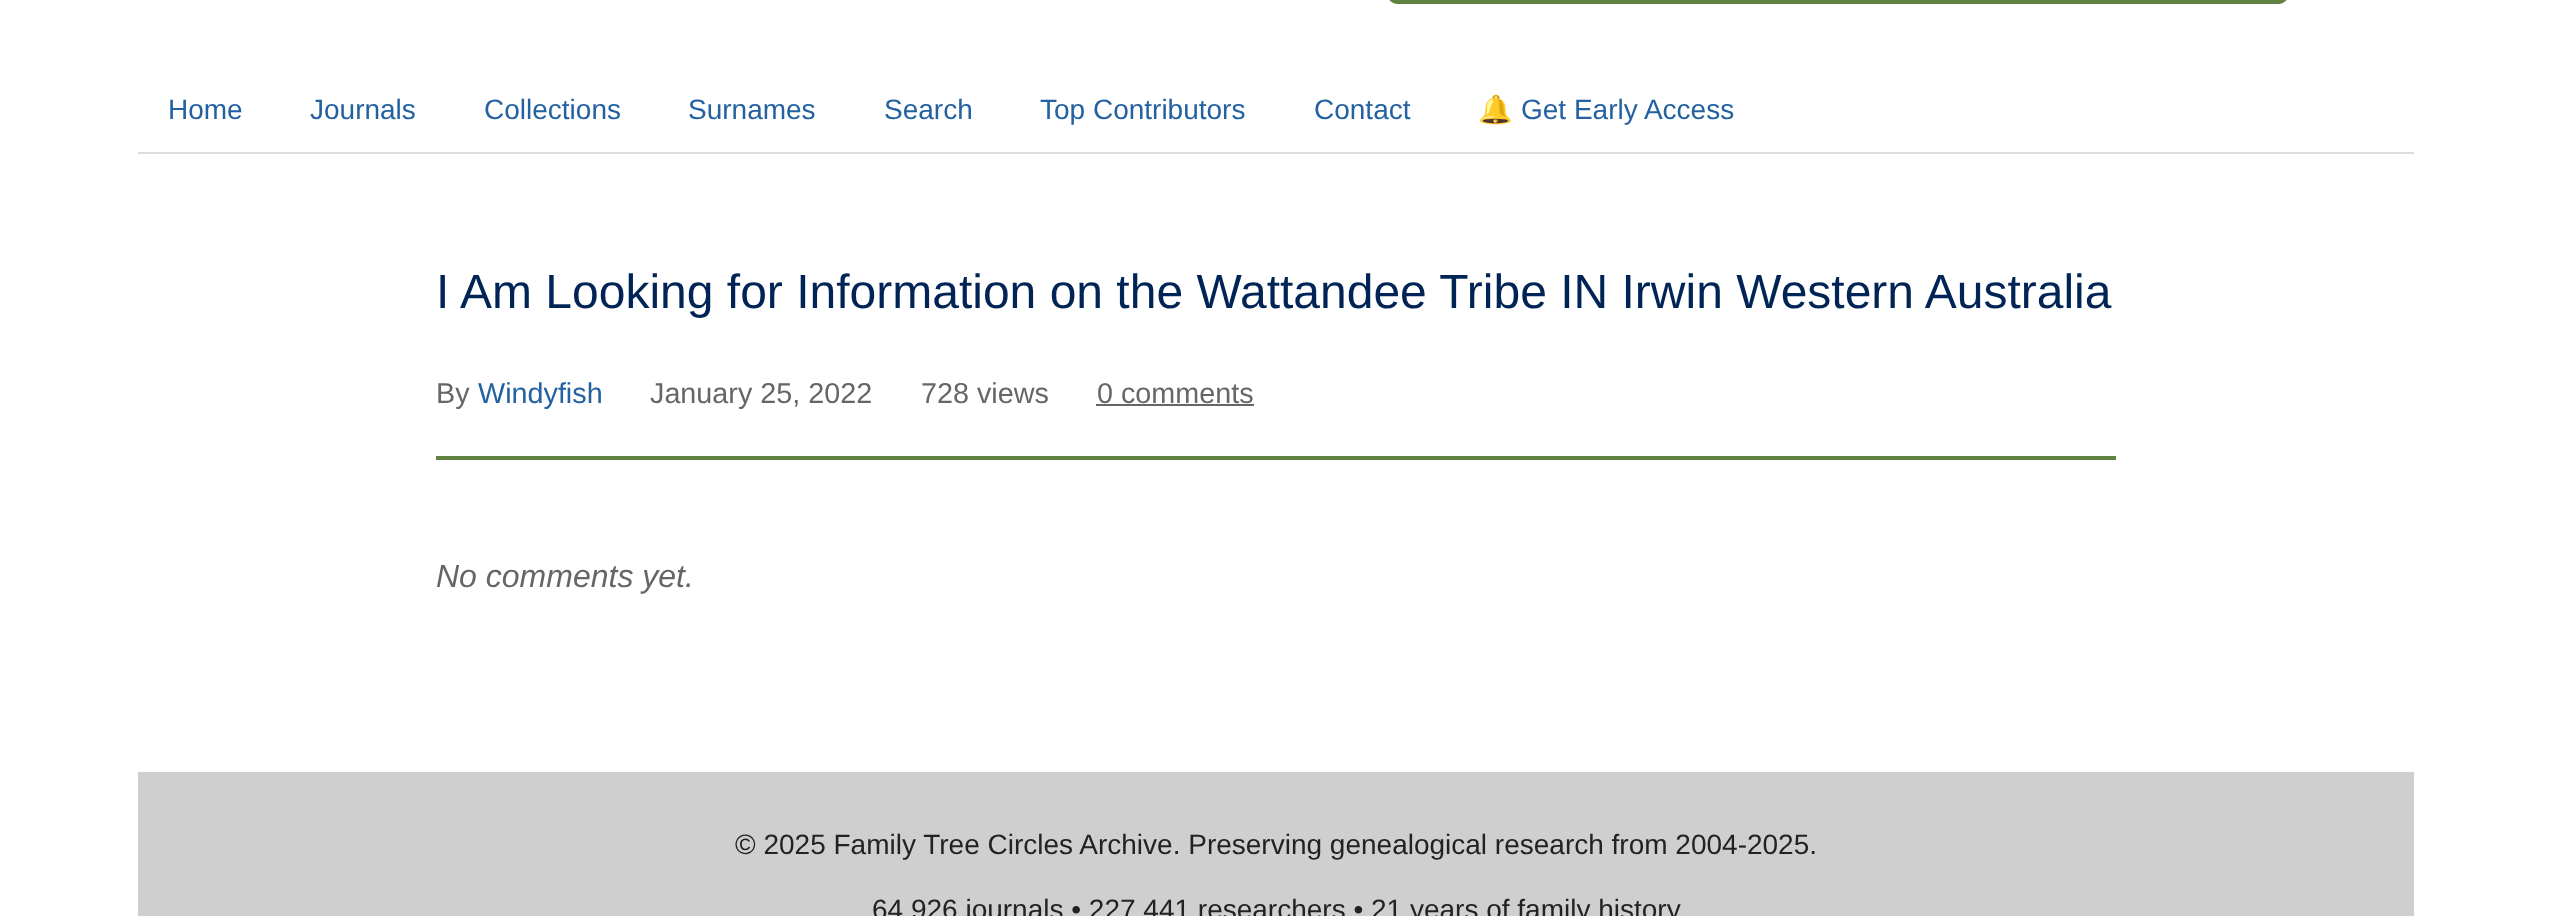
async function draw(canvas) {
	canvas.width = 2552;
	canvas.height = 916;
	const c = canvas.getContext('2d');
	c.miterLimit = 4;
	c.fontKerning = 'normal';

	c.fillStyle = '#fff';
	c.fillRect(0, 0, 2552, 916);
	c.beginPath();
	c.roundRect(1390, -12, 896, 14, 8);
	c.strokeStyle = '#608341';
	c.lineWidth = 4;
	c.stroke();
	c.fillStyle = '#ddd';
	c.fillRect(138, 152, 2276, 2);
	c.font = '28px Liberation Sans';
	c.fillStyle = '#2361a1';
	for (const [text, x, y] of [
		['Home', 168, 119],
		['Journals', 310, 119],
		['Collections', 484, 119],
		['Surnames', 688, 119],
		['Search', 884, 119],
		['Top Contributors', 1040, 119],
		['Contact', 1314, 119],
	]) {
		c.fillText(text, x, y);
	}
	c.font = '28px Noto Color Emoji';
	c.fillText('🔔', 1478, 119);
	c.font = '28px Liberation Sans';
	c.fillText('Get Early Access', 1521, 119);
	c.fillStyle = '#608341';
	c.fillRect(436, 456, 1680, 4);
	c.font = '48px Liberation Sans';
	c.fillStyle = '#002455';
	c.fillText('I Am Looking for Information on the Wattandee Tribe IN Irwin Western Australia', 436, 308);
	c.font = '28.75px Liberation Sans';
	c.fillStyle = '#666';
	c.fillText('By', 436, 403);
	c.fillStyle = '#2361a1';
	c.fillText('Windyfish', 478, 403);
	c.fillStyle = '#666';
	for (const [text, x, y] of [
		['January 25, 2022', 650, 403],
		['728 views', 921, 403],
		['0 comments', 1097, 403],
	]) {
		c.fillText(text, x, y);
	}
	c.fillRect(1096, 404, 158, 2);
	c.font = 'italic 32px Liberation Sans';
	c.fillText('No comments yet.', 436, 587);
	c.fillStyle = '#cfcfcf';
	c.fillRect(138, 772, 2276, 144);
	c.font = '28px Liberation Sans';
	c.fillStyle = '#222';
	c.fillText('© 2025 Family Tree Circles Archive. Preserving genealogical research from 2004-2025.', 735, 854);
	c.fillText('64,926 journals • 227,441 researchers • 21 years of family history', 872, 919);
}

draw(document.querySelector('canvas'));
